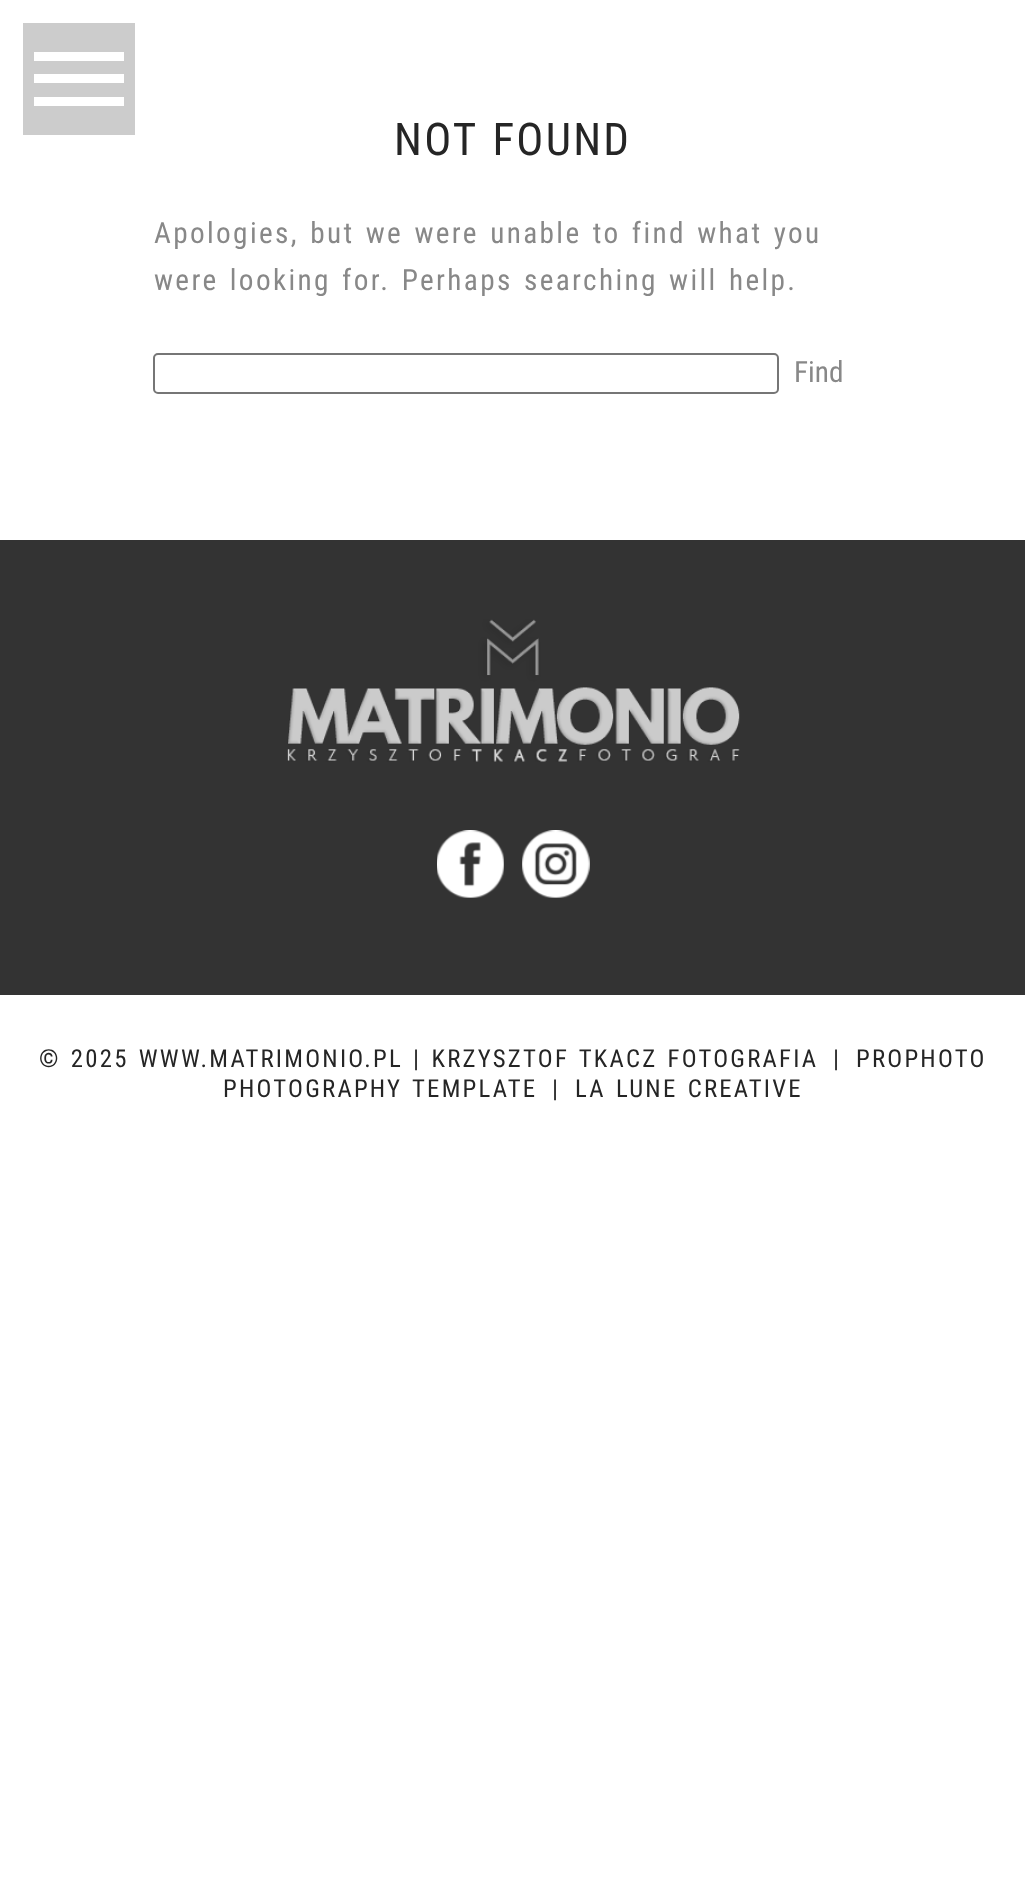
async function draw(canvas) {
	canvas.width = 1025;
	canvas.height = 1903;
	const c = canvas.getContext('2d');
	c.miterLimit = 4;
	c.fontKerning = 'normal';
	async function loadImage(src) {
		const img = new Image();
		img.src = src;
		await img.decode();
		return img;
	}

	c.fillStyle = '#fff';
	c.fillRect(0, 0, 1025, 1903);
	for (const [x, y, w, h, color] of [
		[23, 23, 112, 112, '#ccc'],
		[34, 74, 90, 9, '#fff'],
		[34, 52, 90, 9, '#fff'],
		[34, 97, 90, 9, '#fff'],
	]) {
		c.fillStyle = color;
		c.fillRect(x, y, w, h);
	}
	c.letterSpacing = '2.25px';
	c.wordSpacing = '2.25px';
	c.font = '45px Roboto Condensed';
	c.fillStyle = '#252525';
	c.fillText('NOT FOUND', 394, 155);
	c.letterSpacing = '2.35px';
	c.font = '29.25px Roboto Condensed';
	c.fillStyle = '#888';
	c.fillText('Apologies, but we were unable to find what you', 154, 243);
	c.fillText('were looking for. Perhaps searching will help.', 154, 290);
	c.beginPath();
	c.roundRect(154, 354, 624, 39, 4);
	c.strokeStyle = '#767676';
	c.lineWidth = 2;
	c.stroke();
	c.letterSpacing = '0px';
	c.wordSpacing = '0px';
	c.fillText('Find', 794, 382);
	c.fillStyle = '#333';
	c.fillRect(0, 540, 1025, 455);
	c.drawImage(await loadImage('img1.png'), 287, 619, 453, 143);
	c.drawImage(await loadImage('img2.png'), 437, 830, 67, 68);
	c.drawImage(await loadImage('img3.png'), 522, 830, 68, 68);
	c.letterSpacing = '2.23px';
	c.wordSpacing = '2.25px';
	c.font = '24.75px Roboto Condensed';
	c.fillStyle = '#252525';
	c.fillText('© 2025 WWW.MATRIMONIO.PL | KRZYSZTOF TKACZ FOTOGRAFIA', 39, 1067);
	c.wordSpacing = '0px';
	c.fillText('|', 833, 1067);
	c.fillText('PROPHOTO', 856, 1067);
	c.wordSpacing = '2.25px';
	c.fillText('PHOTOGRAPHY TEMPLATE', 223, 1097);
	c.wordSpacing = '0px';
	c.fillText('|', 552, 1097);
	c.wordSpacing = '2.25px';
	c.fillText('LA LUNE CREATIVE', 575, 1097);
}

draw(document.querySelector('canvas'));
